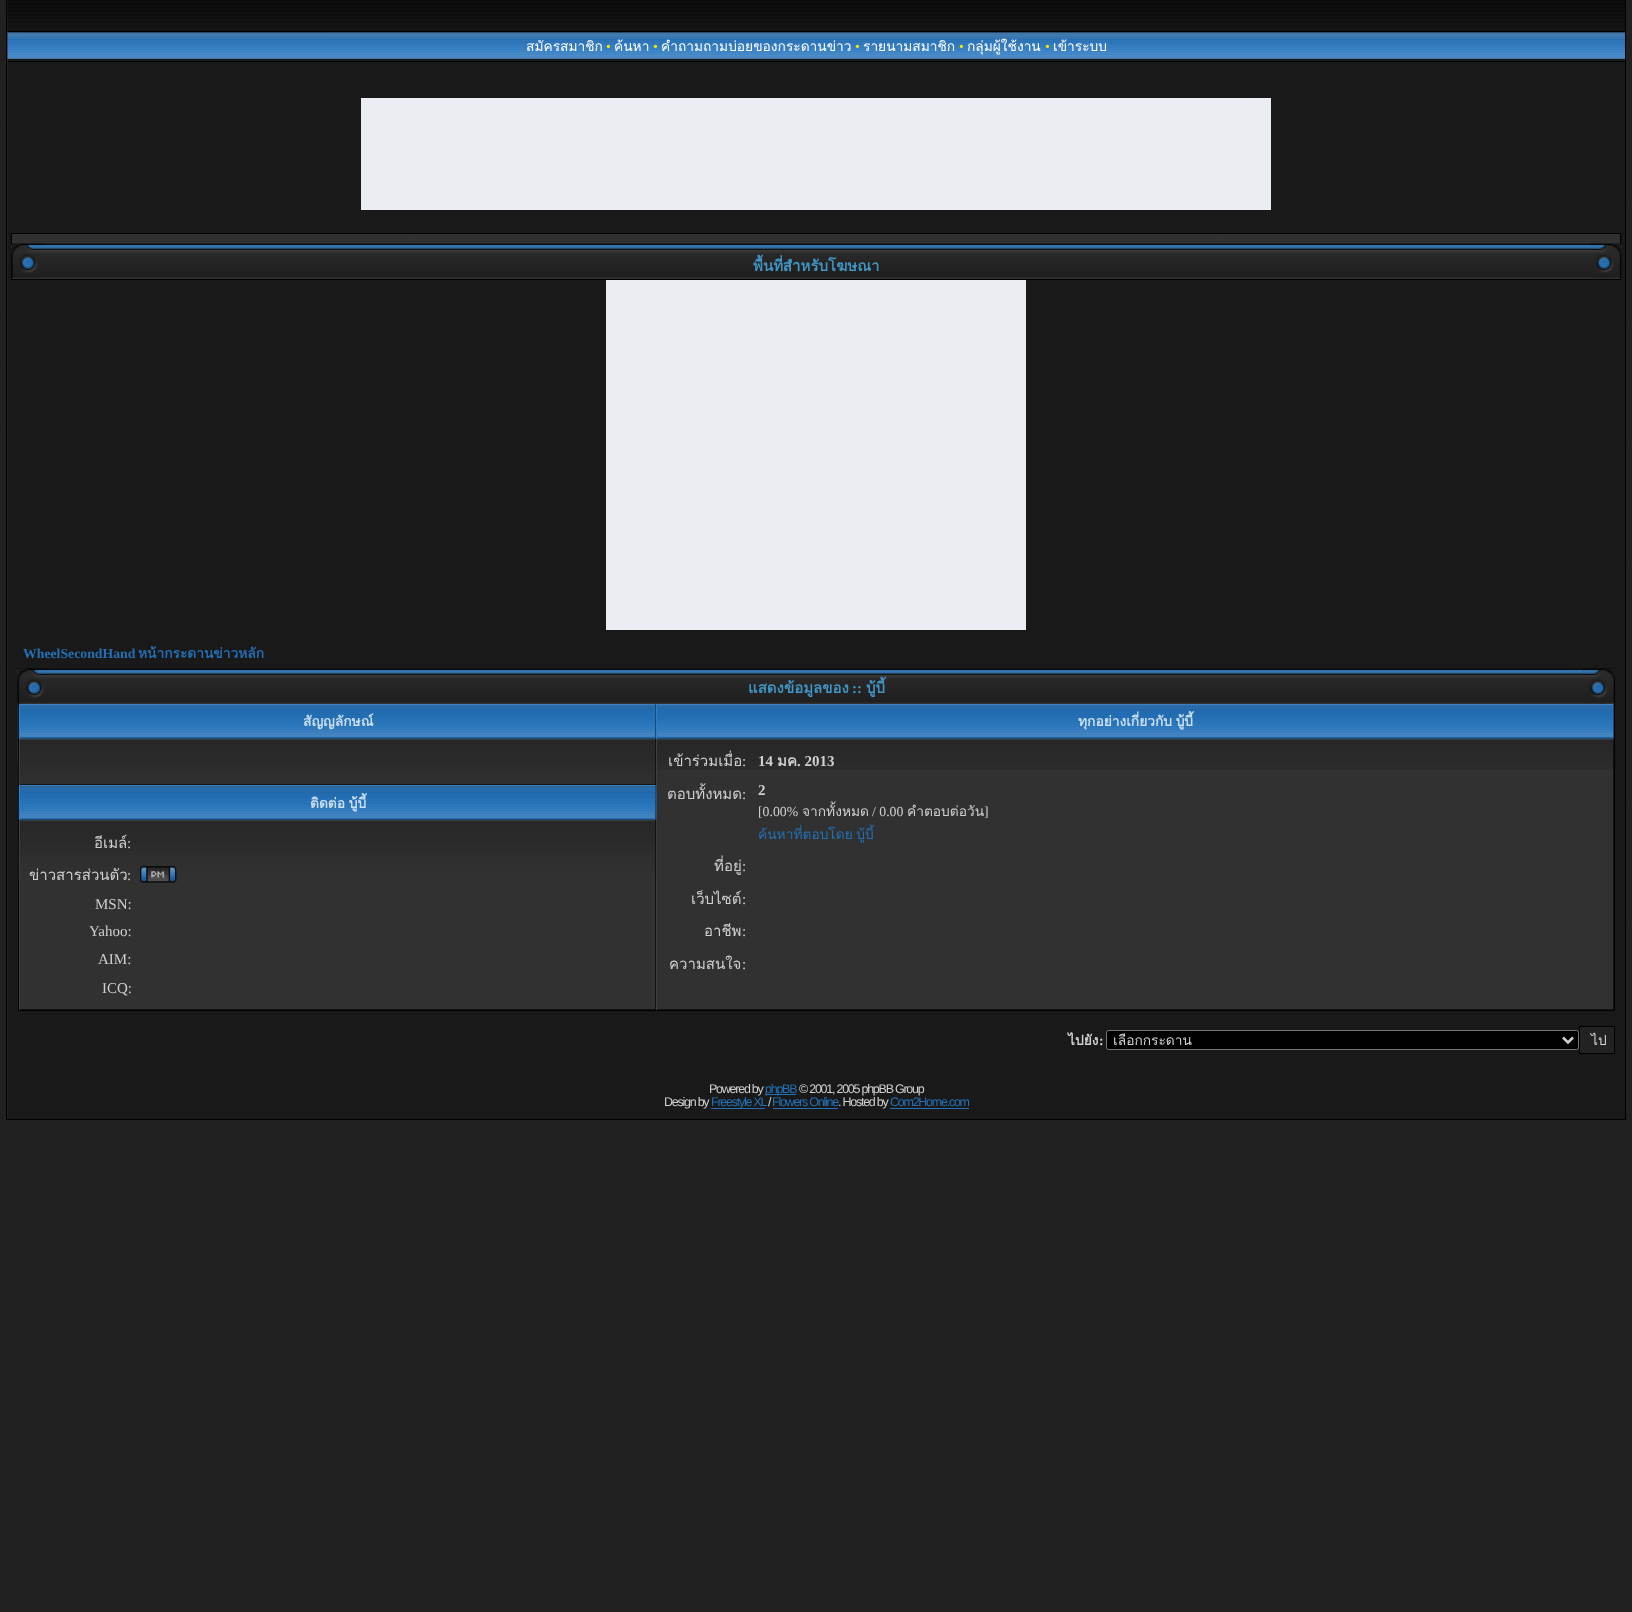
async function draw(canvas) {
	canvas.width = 1632;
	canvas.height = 1612;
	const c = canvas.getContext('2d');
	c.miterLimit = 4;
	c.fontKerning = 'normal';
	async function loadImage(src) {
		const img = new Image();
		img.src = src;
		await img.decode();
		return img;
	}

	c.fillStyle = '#fff';
	c.fillRect(0, 0, 1632, 1612);
	c.drawImage(await loadImage('img1.png'), 0, 1120, 1632, 492);
	c.drawImage(await loadImage('img2.png'), 0, 0, 1632, 1120);
	for (const [x, y, w, h, color] of [
		[1625, 0, 1, 1120, '#000'],
		[6, 1119, 1620, 1, '#000'],
		[6, 0, 1, 1120, '#000'],
		[8, 32, 1617, 1087, '#191919'],
	]) {
		c.fillStyle = color;
		c.fillRect(x, y, w, h);
	}
	c.drawImage(await loadImage('img3.png'), 7, 0, 1618, 31);
	c.fillStyle = '#000';
	c.fillRect(8, 31, 1617, 1);
	c.fillRect(8, 61, 1617, 1);
	c.drawImage(await loadImage('img4.png'), 7, 32, 1618, 27);
	c.font = '13.75px Loma';
	c.fillStyle = '#fff';
	c.fillText('สมัครสมาชิก', 526, 51);
	c.font = '13.75px Liberation Serif';
	c.fillStyle = '#f0e80a';
	c.fillText('•', 606, 51);
	c.font = '13.75px Loma';
	c.fillStyle = '#fff';
	c.fillText('ค้นหา', 614, 51);
	c.font = '13.75px Liberation Serif';
	c.fillStyle = '#f0e80a';
	c.fillText('•', 653, 51);
	c.font = '13.75px Loma';
	c.fillStyle = '#fff';
	for (const [text, x, y] of [
		['คำถามถามบ่อยของกระดานข่าว', 661, 51],
		['รายนามสมาชิก', 863, 51],
		['กลุ่มผู้ใช้งาน', 967, 51],
		['เข้าระบบ', 1053, 51],
	]) {
		c.fillText(text, x, y);
	}
	c.font = '13.75px Liberation Serif';
	c.fillStyle = '#f0e80a';
	for (const [text, x, y] of [
		['•', 855, 51],
		['•', 959, 51],
		['•', 1045, 51],
	]) {
		c.fillText(text, x, y);
	}
	c.fillStyle = '#eaeef3';
	c.fillRect(361, 98, 910, 112);
	c.fillStyle = '#313131';
	c.beginPath();
	c.rect(11.5, 233.5, 1609, 46);
	c.fill();
	c.strokeStyle = '#000';
	c.stroke();
	c.drawImage(await loadImage('img5.png'), 11, 243, 32, 35);
	c.drawImage(await loadImage('img7.png'), 42, 243, 1548, 35);
	c.drawImage(await loadImage('img6.png'), 11, 243, 32, 35);
	c.font = 'bold 15px Loma';
	c.fillStyle = '#4296c5';
	c.fillText('พื้นที่สำหรับโฆษณา', 753, 271);
	c.drawImage(await loadImage('img8.png'), 1590, 243, 32, 35);
	c.drawImage(await loadImage('img9.png'), 1590, 243, 32, 35);
	c.fillStyle = '#eaeef3';
	c.fillRect(606, 280, 420, 350);
	c.font = 'bold 13.75px Liberation Serif';
	c.fillStyle = '#2370b6';
	c.fillText('WheelSecondHand', 23, 658);
	c.font = 'bold 13.75px Loma';
	c.fillText('หน้ากระดานข่าวหลัก', 138, 658);
	c.fillStyle = '#313131';
	c.fillRect(19, 670, 1595, 339);
	c.drawImage(await loadImage('img10.png'), 17, 704, 1, 59);
	c.strokeRect(18.5, 669.5, 1596, 341);
	c.drawImage(await loadImage('img11.png'), 17, 668, 32, 35);
	c.drawImage(await loadImage('img13.png'), 48, 668, 1536, 35);
	c.drawImage(await loadImage('img12.png'), 17, 668, 32, 35);
	c.font = 'bold 15px Loma';
	c.fillStyle = '#4296c5';
	c.fillText('แสดงข้อมูลของ', 748, 693);
	c.font = 'bold 15px Liberation Serif';
	c.fillText('::', 852, 693);
	c.font = 'bold 15px Loma';
	c.fillText('บู้บี้', 866, 693);
	c.drawImage(await loadImage('img14.png'), 1583, 668, 32, 35);
	c.drawImage(await loadImage('img15.png'), 1583, 668, 32, 35);
	c.drawImage(await loadImage('img16.png'), 18, 705, 637, 34);
	for (const [x, y, w, h, color] of [
		[19, 704, 1595, 1, '#3981c3'],
		[655, 704, 1, 35, '#164c7d'],
		[19, 738, 637, 1, '#164c7d'],
		[19, 704, 1, 35, '#317cc2'],
	]) {
		c.fillStyle = color;
		c.fillRect(x, y, w, h);
	}
	c.font = 'bold 13.75px Loma';
	c.fillStyle = '#ccdff0';
	c.fillText('สัญญลักษณ์', 303, 726);
	c.drawImage(await loadImage('img17.png'), 657, 705, 956, 33);
	for (const [x, y, w, h, color] of [
		[1613, 704, 1, 35, '#164c7d'],
		[656, 738, 958, 1, '#164c7d'],
		[656, 704, 1, 35, '#317cc2'],
	]) {
		c.fillStyle = color;
		c.fillRect(x, y, w, h);
	}
	c.wordSpacing = '-1px';
	c.fillStyle = '#ccdff0';
	c.fillText('ทุกอย่างเกี่ยวกับ บู้บี้', 1078, 726);
	for (const [x, y, w, h, color] of [
		[19, 739, 1595, 1, '#3c3c3c'],
		[1613, 739, 1, 271, '#121212'],
		[656, 1009, 958, 1, '#131313'],
		[656, 739, 1, 271, '#404040'],
	]) {
		c.fillStyle = color;
		c.fillRect(x, y, w, h);
	}
	c.drawImage(await loadImage('img18.png'), 18, 786, 639, 34);
	for (const [x, y, w, h, color] of [
		[19, 785, 637, 1, '#3981c3'],
		[655, 785, 1, 35, '#164c7d'],
		[19, 785, 1, 35, '#317cc2'],
	]) {
		c.fillStyle = color;
		c.fillRect(x, y, w, h);
	}
	c.fillStyle = '#ccdff0';
	c.fillText('ติดต่อ บู้บี้', 310, 808);
	c.drawImage(await loadImage('img19.png'), 18, 740, 637, 45);
	for (const [x, y, w, h, color] of [
		[655, 739, 1, 46, '#121212'],
		[19, 784, 637, 1, '#131313'],
		[19, 739, 1, 46, '#404040'],
	]) {
		c.fillStyle = color;
		c.fillRect(x, y, w, h);
	}
	c.drawImage(await loadImage('img20.png'), 657, 740, 956, 30);
	c.wordSpacing = '0px';
	c.font = '15px Loma';
	c.fillStyle = '#d0d0d0';
	c.fillText('เข้าร่วมเมื่อ', 668, 766);
	c.font = '15px Liberation Serif';
	c.fillText(':', 742, 766);
	c.font = 'bold 15px Liberation Serif';
	c.fillText('14', 758, 766);
	c.font = 'bold 15px Loma';
	c.fillText('มค', 777, 766);
	c.font = 'bold 15px Liberation Serif';
	c.fillText('. 2013', 797, 766);
	c.font = '15px Loma';
	c.fillText('ตอบทั้งหมด', 667, 799);
	c.font = '15px Liberation Serif';
	c.fillText(':', 742, 799);
	c.font = 'bold 15px Liberation Serif';
	c.fillText('2', 758, 795);
	c.font = '13.75px Liberation Serif';
	c.fillText('[0.00%', 758, 816);
	c.font = '13.75px Loma';
	c.fillText('จากทั้งหมด', 802, 816);
	c.font = '13.75px Liberation Serif';
	c.fillText('/ 0.00', 872, 816);
	c.font = '13.75px Loma';
	c.fillText('คำตอบต่อวัน', 907, 816);
	c.font = '13.75px Liberation Serif';
	c.fillText(']', 984, 816);
	c.wordSpacing = '-1px';
	c.font = '13.75px Loma';
	c.fillStyle = '#2370b6';
	c.fillText('ค้นหาที่ตอบโดย บู้บี้', 758, 839);
	c.wordSpacing = '0px';
	c.font = '15px Loma';
	c.fillStyle = '#d0d0d0';
	c.fillText('ที่อยู่', 714, 871);
	c.font = '15px Liberation Serif';
	c.fillText(':', 742, 871);
	c.font = '15px Loma';
	c.fillText('เว็บไซต์', 691, 904);
	c.font = '15px Liberation Serif';
	c.fillText(':', 742, 904);
	c.font = '15px Loma';
	c.fillText('อาชีพ', 704, 936);
	c.font = '15px Liberation Serif';
	c.fillText(':', 742, 936);
	c.font = '15px Loma';
	c.fillText('ความสนใจ', 669, 969);
	c.font = '15px Liberation Serif';
	c.fillText(':', 742, 969);
	c.drawImage(await loadImage('img21.png'), 18, 821, 639, 59);
	for (const [x, y, w, h, color] of [
		[19, 820, 637, 1, '#3c3c3c'],
		[655, 820, 1, 190, '#121212'],
		[19, 1009, 637, 1, '#131313'],
		[19, 820, 1, 190, '#404040'],
	]) {
		c.fillStyle = color;
		c.fillRect(x, y, w, h);
	}
	c.font = '15px Loma';
	c.fillStyle = '#d0d0d0';
	c.fillText('อีเมล์', 94, 848);
	c.font = '15px Liberation Serif';
	c.fillText(':', 127, 848);
	c.font = '15px Loma';
	c.fillText('ข่าวสารส่วนตัว', 29, 880);
	c.font = '15px Liberation Serif';
	c.fillText(':', 127, 880);
	c.drawImage(await loadImage('img22.png'), 140, 866, 37, 17);
	for (const [text, x, y] of [
		['MSN:', 95, 909],
		['Yahoo:', 89, 936],
		['AIM:', 98, 964],
		['ICQ:', 102, 993],
	]) {
		c.fillText(text, x, y);
	}
	c.font = 'bold 13.75px Loma';
	c.fillText('ไปยัง', 1068, 1045);
	c.font = 'bold 13.75px Liberation Serif';
	c.fillText(':', 1099, 1045);
	c.fillStyle = '#000';
	c.beginPath();
	c.roundRect(1106.5, 1030.5, 472, 19, 2);
	c.fill();
	c.strokeStyle = '#767676';
	c.stroke();
	c.beginPath();
	c.moveTo(1563, 1037.5);
	c.lineTo(1568, 1042.5);
	c.lineTo(1573, 1037.5);
	c.strokeStyle = '#d0d0d0';
	c.lineWidth = 2.5;
	c.stroke();
	c.save();
	c.beginPath();
	c.rect(1113, 1031, 445, 18);
	c.clip();
	c.font = '13.75px Loma';
	c.fillStyle = '#d0d0d0';
	c.fillText('เลือกกระดาน', 1113, 1045);
	c.restore();
	c.fillStyle = '#222';
	c.beginPath();
	c.rect(1579.5, 1026.5, 35, 27);
	c.fill();
	c.strokeStyle = '#000';
	c.lineWidth = 1;
	c.stroke();
	c.font = '13.75px Loma';
	c.fillStyle = '#d0d0d0';
	c.fillText('ไป', 1591, 1045);
	c.letterSpacing = '-1.25px';
	c.font = '12.5px Liberation Sans';
	c.fillText('Powered by', 709, 1093);
	c.fillStyle = '#2370b6';
	c.fillRect(765, 1094, 31, 1);
	c.fillText('phpBB', 765, 1093);
	c.fillStyle = '#d0d0d0';
	c.fillText('© 2001, 2005 phpBB Group', 799, 1093);
	c.fillText('Design by', 664, 1106);
	c.fillStyle = '#2370b6';
	c.fillRect(711, 1108, 54, 1);
	c.fillText('Freestyle XL', 711, 1106);
	c.fillStyle = '#d0d0d0';
	c.fillText('/', 768, 1106);
	c.fillStyle = '#2370b6';
	c.fillText('Flowers Online', 772, 1106);
	c.fillStyle = '#d0d0d0';
	c.fillText('. Hosted by', 838, 1106);
	c.fillStyle = '#2370b6';
	c.fillRect(773, 1108, 65, 1);
	c.fillRect(890, 1108, 79, 1);
	c.fillText('Com2Home.com', 890, 1106);
}

draw(document.querySelector('canvas'));
